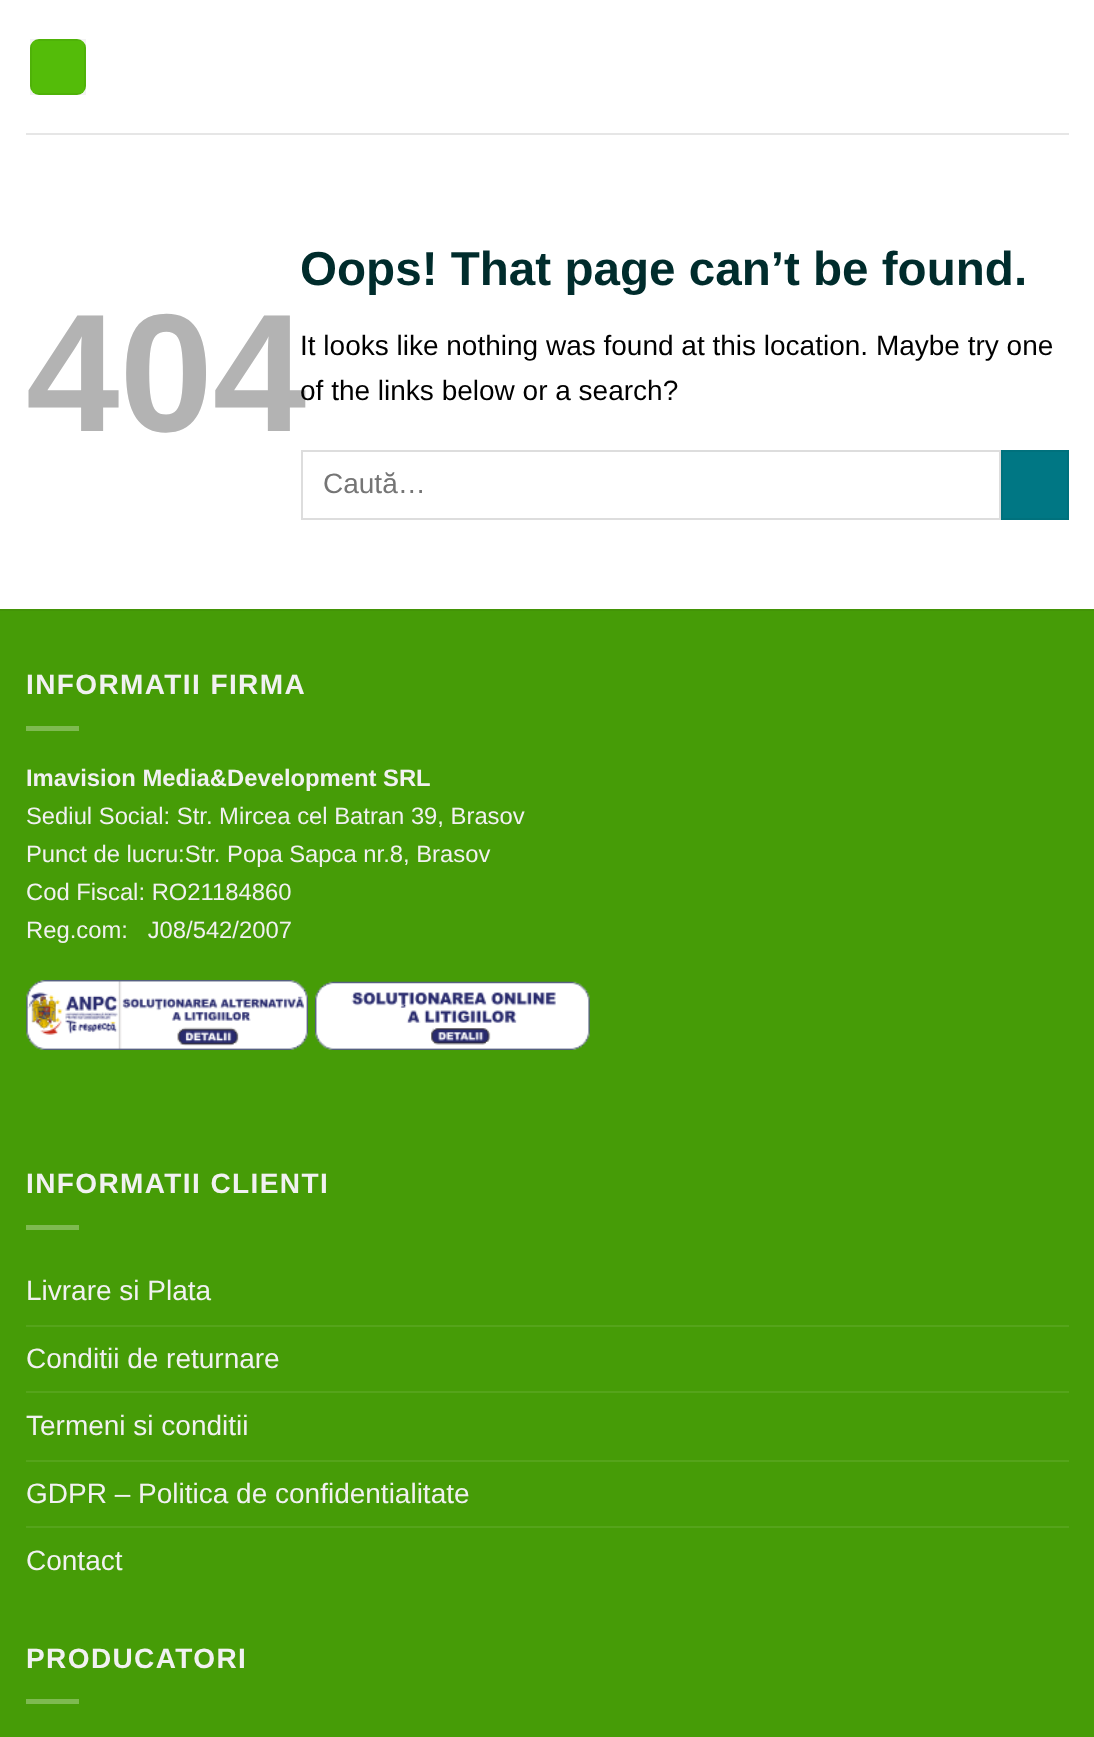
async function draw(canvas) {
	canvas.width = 1094;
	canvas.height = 1737;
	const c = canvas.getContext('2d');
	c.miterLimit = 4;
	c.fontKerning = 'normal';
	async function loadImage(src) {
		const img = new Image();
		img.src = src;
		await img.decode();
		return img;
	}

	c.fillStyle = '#fff';
	c.fillRect(0, 0, 1094, 1737);
	c.fillStyle = '#54bc09';
	c.beginPath();
	c.roundRect(30, 39, 56, 56, 9);
	c.fill();
	c.strokeStyle = '#0000000d';
	c.lineWidth = 2;
	c.strokeRect(31, 40, 54, 54);
	c.fillStyle = '#e6e6e6';
	c.fillRect(26, 133, 1043, 2);
	c.font = 'bold 168px Liberation Sans';
	c.fillStyle = '#b3b3b3';
	c.fillText('404', 26, 431);
	c.font = 'bold 47.6px Liberation Sans';
	c.fillStyle = '#002c2c';
	c.fillText('Oops! That page can’t be found.', 300, 285);
	c.font = '28px Liberation Sans';
	c.fillStyle = '#000';
	c.fillText('It looks like nothing was found at this location. Maybe try one', 300, 355);
	c.fillText('of the links below or a search?', 300, 400);
	c.strokeStyle = '#ddd';
	c.strokeRect(302, 451, 698, 68);
	c.fillStyle = '#757575';
	c.fillText('Caută…', 323, 493);
	c.fillStyle = '#007784';
	c.beginPath();
	c.rect(1002, 451, 66, 68);
	c.fill();
	c.strokeStyle = '#00717d';
	c.stroke();
	c.fillStyle = '#469c07';
	c.fillRect(0, 611, 1094, 1126);
	c.fillStyle = '#439407';
	c.fillRect(0, 609, 1094, 2);
	c.letterSpacing = '1.4px';
	c.font = 'bold 28px Liberation Sans';
	c.fillStyle = '#f1f1f1';
	c.fillText('INFORMATII FIRMA', 26, 694);
	c.fillStyle = '#7eba51';
	c.fillRect(26, 726, 53, 5);
	c.letterSpacing = '0px';
	c.font = 'bold 23.8px Liberation Sans';
	c.fillStyle = '#f1f1f1';
	c.fillText('Imavision Media&Development SRL', 26, 786);
	c.font = '23.8px Liberation Sans';
	for (const [text, x, y] of [
		['Sediul Social: Str. Mircea cel Batran 39, Brasov', 26, 824],
		['Punct de lucru:Str. Popa Sapca nr.8, Brasov', 26, 862],
		['Cod Fiscal: RO21184860', 26, 900],
		['Reg.com:   J08/542/2007', 26, 938],
	]) {
		c.fillText(text, x, y);
	}
	c.drawImage(await loadImage('img1.png'), 26, 980, 282, 70);
	c.drawImage(await loadImage('img2.png'), 315, 981, 275, 69);
	c.letterSpacing = '1.4px';
	c.font = 'bold 28px Liberation Sans';
	c.fillText('INFORMATII CLIENTI', 26, 1193);
	c.fillStyle = '#7eba51';
	c.fillRect(26, 1225, 53, 5);
	c.letterSpacing = '0px';
	c.font = '28px Liberation Sans';
	c.fillStyle = '#f1f1f1';
	c.fillText('Livrare si Plata', 26, 1300);
	c.fillStyle = '#55a41b';
	c.fillRect(26, 1325, 1043, 2);
	c.fillStyle = '#f1f1f1';
	c.fillText('Conditii de returnare', 26, 1368);
	c.fillStyle = '#55a41b';
	c.fillRect(26, 1391, 1043, 2);
	c.fillStyle = '#f1f1f1';
	c.fillText('Termeni si conditii', 26, 1435);
	c.fillStyle = '#55a41b';
	c.fillRect(26, 1460, 1043, 2);
	c.fillStyle = '#f1f1f1';
	c.fillText('GDPR – Politica de confidentialitate', 26, 1503);
	c.fillStyle = '#55a41b';
	c.fillRect(26, 1526, 1043, 2);
	c.fillStyle = '#f1f1f1';
	c.fillText('Contact', 26, 1570);
	c.letterSpacing = '1.4px';
	c.font = 'bold 28px Liberation Sans';
	c.fillText('PRODUCATORI', 26, 1668);
	c.fillStyle = '#7eba51';
	c.fillRect(26, 1699, 53, 5);
}

draw(document.querySelector('canvas'));
